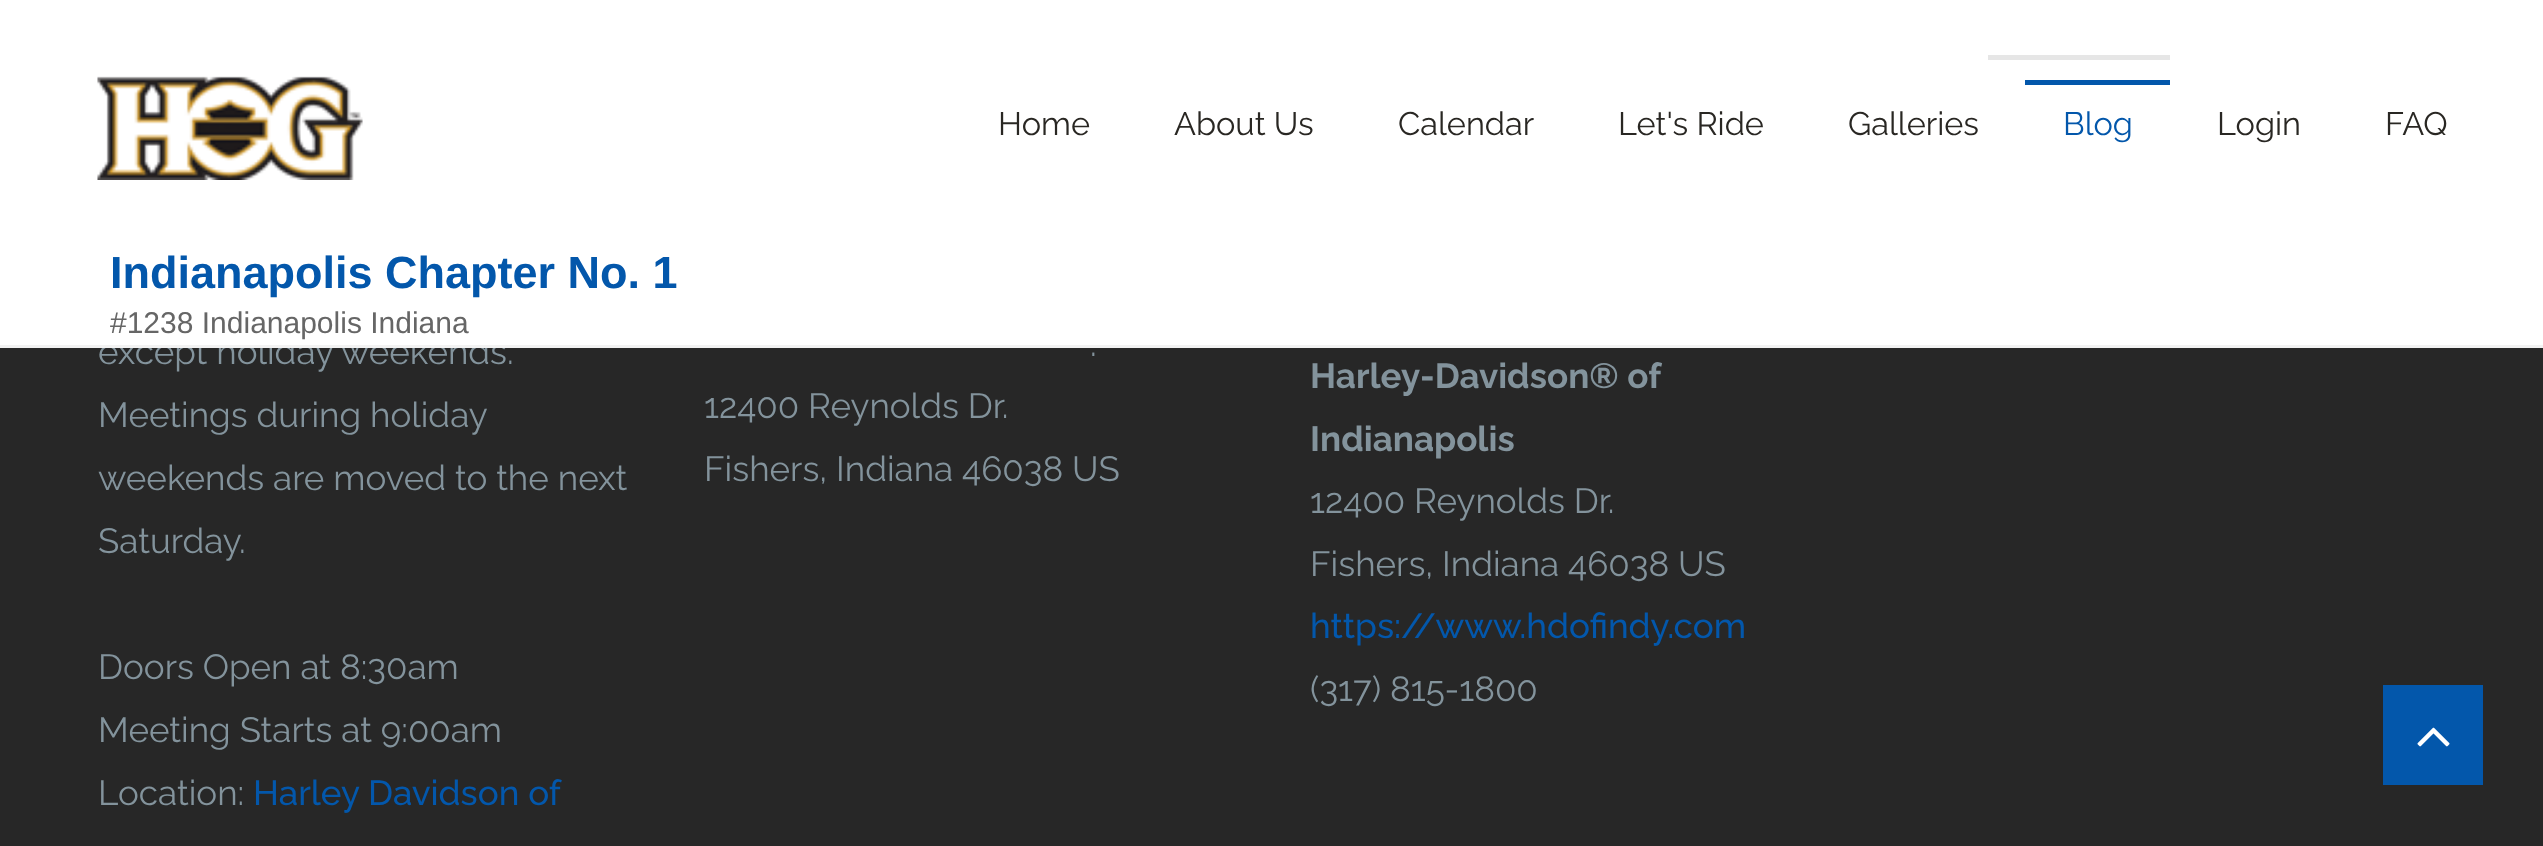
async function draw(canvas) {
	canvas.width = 2543;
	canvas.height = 846;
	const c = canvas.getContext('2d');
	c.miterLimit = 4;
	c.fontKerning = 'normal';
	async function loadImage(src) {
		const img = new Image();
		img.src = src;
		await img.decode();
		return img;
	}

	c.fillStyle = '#272727';
	c.fillRect(0, 0, 2543, 846);
	c.font = '35px Raleway';
	c.fillStyle = '#83939c';
	c.fillText('except holiday weekends.', 98, 364);
	c.fillStyle = '#fff';
	c.fillRect(0, 0, 2543, 345);
	c.fillStyle = '#f2f2f2';
	c.fillRect(0, 345, 2543, 3);
	c.font = '32.5px Raleway';
	c.fillStyle = '#292723';
	for (const [text, x, y] of [
		['Home', 998, 135],
		['About Us', 1174, 135],
		['Calendar', 1398, 135],
		['Let\'s Ride', 1618, 135],
		['Galleries', 1848, 135],
	]) {
		c.fillText(text, x, y);
	}
	c.fillStyle = '#e6e6e6';
	c.fillRect(1988, 55, 182, 5);
	c.fillStyle = '#0357ab';
	c.fillRect(2025, 80, 145, 5);
	c.fillText('Blog', 2063, 135);
	c.fillStyle = '#292723';
	c.fillText('Login', 2217, 135);
	c.fillText('FAQ', 2385, 135);
	c.drawImage(await loadImage('img1.png'), 97, 76, 266, 104);
	c.font = 'bold 45px Liberation Sans';
	c.fillStyle = '#0357ab';
	c.fillText('Indianapolis Chapter No. 1', 110, 288);
	c.font = '30px Liberation Sans';
	c.fillStyle = '#666';
	c.fillText('#1238 Indianapolis Indiana', 110, 333);
	c.font = '35px Raleway';
	c.fillStyle = '#83939c';
	for (const [text, x, y] of [
		['Meetings during holiday', 98, 427],
		['weekends are moved to the next', 98, 490],
		['Saturday.', 98, 553],
		['Doors Open at 8:30am', 98, 679],
		['Meeting Starts at 9:00am', 98, 742],
		['Location:', 98, 805],
	]) {
		c.fillText(text, x, y);
	}
	c.font = '500 35px Raleway';
	c.fillStyle = '#0357ab';
	c.fillText('Harley Davidson of', 253, 805);
	c.font = '35px Raleway';
	c.fillStyle = '#83939c';
	for (const [text, x, y] of [
		['.', 1090, 356],
		['12400 Reynolds Dr.', 704, 418],
		['Fishers, Indiana 46038 US', 704, 481],
	]) {
		c.fillText(text, x, y);
	}
	c.font = 'bold 35px Raleway';
	c.fillText('Harley-Davidson® of', 1310, 388);
	c.fillText('Indianapolis', 1310, 451);
	c.font = '35px Raleway';
	c.fillText('12400 Reynolds Dr.', 1310, 513);
	c.fillText('Fishers, Indiana 46038 US', 1310, 576);
	c.font = '500 35px Raleway';
	c.fillStyle = '#0357ab';
	c.fillText('https://www.hdofindy.com', 1310, 638);
	c.font = '35px Raleway';
	c.fillStyle = '#83939c';
	c.fillText('(317) 815-1800', 1310, 701);
	c.fillStyle = '#0357ab';
	c.fillRect(2383, 685, 100, 100);
	c.drawImage(await loadImage('img2.png'), 2417, 727, 33, 20);
}

draw(document.querySelector('canvas'));
